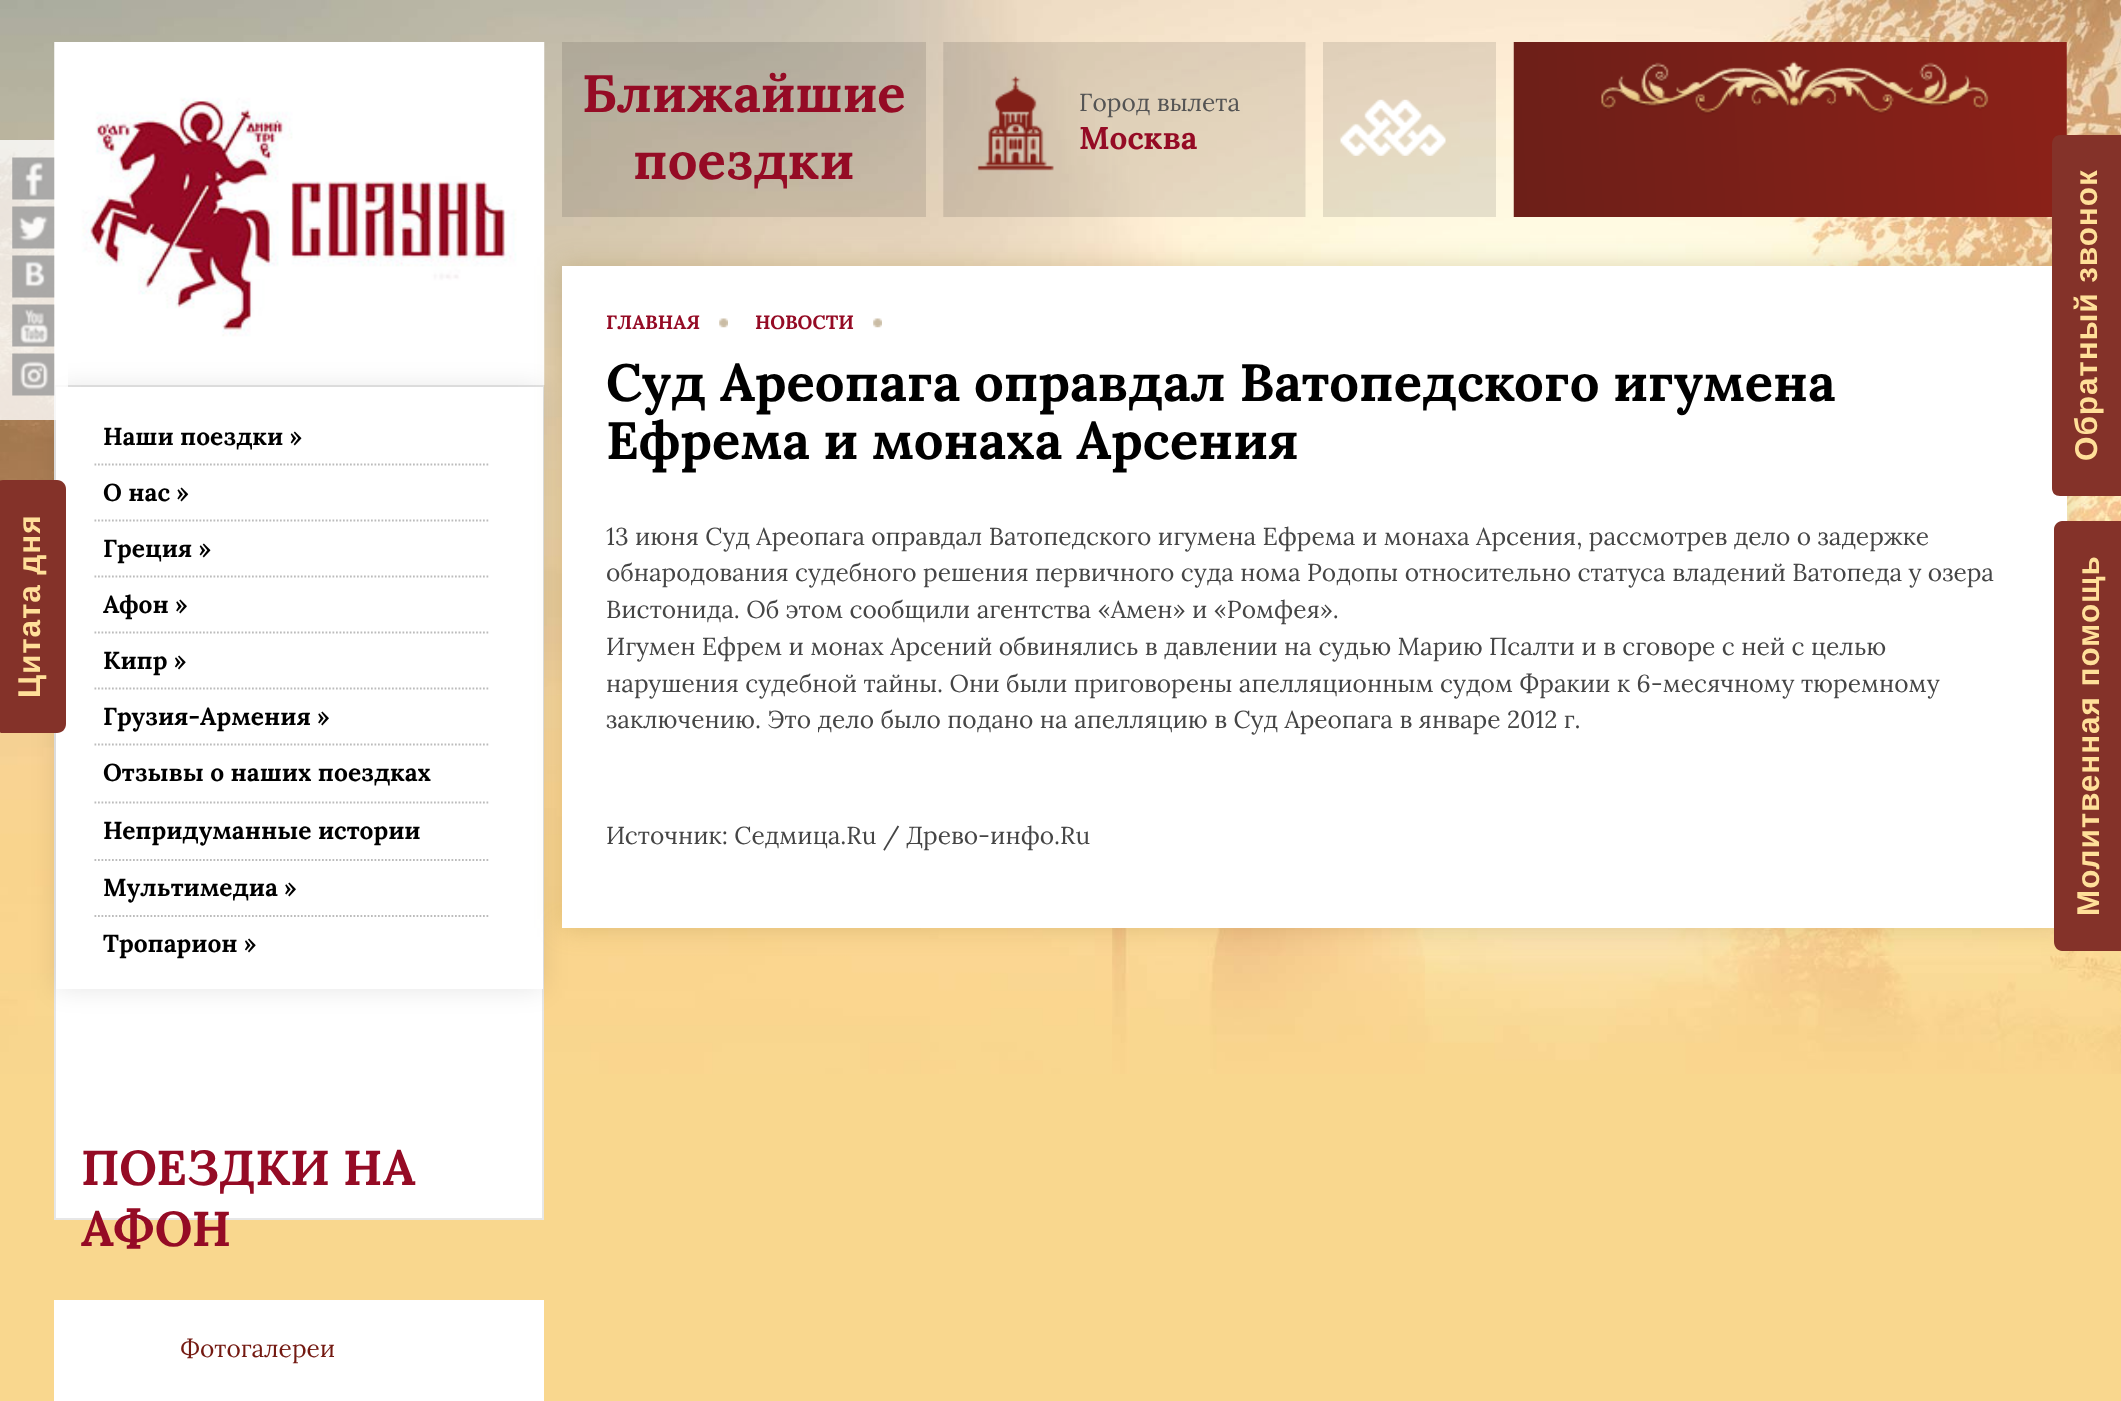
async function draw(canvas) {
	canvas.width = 2121;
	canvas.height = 1401;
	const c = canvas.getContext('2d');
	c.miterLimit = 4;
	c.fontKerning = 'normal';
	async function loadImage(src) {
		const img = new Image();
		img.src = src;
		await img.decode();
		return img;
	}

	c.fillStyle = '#f9d78e';
	c.fillRect(0, 0, 2121, 1401);
	c.drawImage(await loadImage('img1.png'), 0, 0, 2121, 1074);
	c.drawImage(await loadImage('img7.png'), 54, 42, 491, 343);
	c.fillStyle = '#fff';
	c.fillRect(56, 989, 486, 229);
	c.strokeStyle = '#e7e7e7';
	c.lineWidth = 2;
	c.strokeRect(55, 386, 488, 833);
	c.fillStyle = '#0000001a';
	c.filter = 'blur(13px)';
	c.beginPath();
	c.rect(56, 387, 487, 602);
	c.fill();
	c.filter = 'none';
	c.fillStyle = '#fff';
	c.fillRect(56, 387, 487, 602);
	c.fillStyle = '#ffffffcc';
	c.fillRect(0, 140, 68, 280);
	c.drawImage(await loadImage('img2.png'), 12, 157, 43, 43);
	c.drawImage(await loadImage('img3.png'), 12, 206, 43, 43);
	c.drawImage(await loadImage('img4.png'), 12, 255, 43, 43);
	c.drawImage(await loadImage('img5.png'), 12, 304, 43, 43);
	c.drawImage(await loadImage('img6.png'), 12, 353, 43, 43);
	c.font = 'bold 24.5px Lora';
	c.fillStyle = '#000';
	c.fillText('Наши поездки »', 103, 445);
	c.beginPath();
	c.moveTo(94.5, 464.5);
	c.lineTo(490, 464.5);
	c.strokeStyle = '#bcbcbc';
	c.lineWidth = 1.8;
	c.setLineDash([1.75, 1.75]);
	c.stroke();
	c.fillText('О нас »', 103, 501);
	c.beginPath();
	c.moveTo(94.5, 520.5);
	c.lineTo(490, 520.5);
	c.stroke();
	c.fillText('Греция »', 103, 557);
	c.beginPath();
	c.moveTo(94.5, 576.5);
	c.lineTo(490, 576.5);
	c.stroke();
	c.fillText('Афон »', 103, 613);
	c.beginPath();
	c.moveTo(94.5, 632.5);
	c.lineTo(490, 632.5);
	c.stroke();
	c.fillText('Кипр »', 103, 669);
	c.beginPath();
	c.moveTo(94.5, 688.5);
	c.lineTo(490, 688.5);
	c.stroke();
	c.fillText('Грузия-Армения »', 103, 725);
	c.beginPath();
	c.moveTo(94.5, 744.5);
	c.lineTo(490, 744.5);
	c.stroke();
	c.fillText('Отзывы о наших поездках', 103, 781);
	c.beginPath();
	c.moveTo(94.5, 802.5);
	c.lineTo(490, 802.5);
	c.stroke();
	c.fillText('Непридуманные истории', 103, 839);
	c.beginPath();
	c.moveTo(94.5, 860);
	c.lineTo(490, 860);
	c.stroke();
	c.fillText('Мультимедиа »', 103, 896);
	c.beginPath();
	c.moveTo(94.5, 916);
	c.lineTo(490, 916);
	c.stroke();
	c.fillText('Тропарион »', 103, 952);
	c.font = 'bold 49px Lora';
	c.fillStyle = '#950b25';
	c.fillText('ПОЕЗДКИ НА', 81, 1185);
	c.fillText('АФОН', 81, 1246);
	c.fillStyle = '#fff';
	c.fillRect(54, 1300, 490, 101);
	c.font = '24.5px Lora';
	c.fillStyle = '#731911';
	c.fillText('Фотогалереи', 180, 1357);
	c.fillStyle = '#0000001a';
	c.fillRect(562, 42, 364, 175);
	c.font = 'bold 52.5px Lora';
	c.fillStyle = '#950b25';
	c.fillText('Ближайшие', 582, 112);
	c.fillText('поездки', 633, 179);
	c.drawImage(await loadImage('img8.png'), 943, 42, 363, 175);
	c.font = '24.5px Lora';
	c.fillStyle = '#545454';
	c.fillText('Город вылета', 1079, 111);
	c.font = 'bold 31.5px Lora';
	c.fillStyle = '#950b25';
	c.fillText('Москва', 1079, 149);
	c.fillStyle = '#0000001a';
	c.fillRect(1323, 42, 173, 175);
	c.drawImage(await loadImage('img9.png'), 1340, 99, 106, 57);
	c.drawImage(await loadImage('img10.png'), 1513, 42, 554, 175);
	c.fillStyle = '#9d7f314d';
	c.filter = 'blur(13px)';
	c.beginPath();
	c.rect(562, 266, 1505, 662);
	c.fill();
	c.filter = 'none';
	c.fillStyle = '#fff';
	c.fillRect(562, 266, 1505, 662);
	c.drawImage(await loadImage('img11.png'), 719, 318, 9, 10);
	c.font = 'bold 19.25px Lora';
	c.fillStyle = '#950b25';
	c.fillText('ГЛАВНАЯ', 606, 329);
	c.drawImage(await loadImage('img12.png'), 873, 318, 9, 10);
	c.fillText('НОВОСТИ', 755, 329);
	c.font = 'bold 52.5px Lora';
	c.fillStyle = '#000';
	c.fillText('Суд Ареопага оправдал Ватопедского игумена', 606, 401);
	c.fillText('Ефрема и монаха Арсения', 606, 459);
	c.font = '24.5px Lora';
	c.fillStyle = '#454545';
	for (const [text, x, y] of [
		['13 июня Суд Ареопага оправдал Ватопедского игумена Ефрема и монаха Арсения, рассмотрев дело о задержке', 606, 545],
		['обнародования судебного решения первичного суда нома Родопы относительно статуса владений Ватопеда у озера', 606, 581],
		['Вистонида. Об этом сообщили агентства «Амен» и «Ромфея».', 606, 618],
		['Игумен Ефрем и монах Арсений обвинялись в давлении на судью Марию Псалти и в сговоре с ней с целью', 606, 655],
		['нарушения судебной тайны. Они были приговорены апелляционным судом Фракии к 6-месячному тюремному', 606, 692],
		['заключению. Это дело было подано на апелляцию в Суд Ареопага в январе 2012 г.', 606, 728],
		['Источник: Седмица.Ru / Древо-инфо.Ru', 606, 844],
	]) {
		c.fillText(text, x, y);
	}
	c.fillStyle = '#843229';
	c.beginPath();
	c.moveTo(2052, 488);
	c.lineTo(2052, 144);
	c.bezierCurveTo(2052, 139, 2055, 135, 2060, 135);
	c.lineTo(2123, 135);
	c.lineTo(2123, 496);
	c.lineTo(2060, 496);
	c.bezierCurveTo(2055, 496, 2052, 493, 2052, 488);
	c.closePath();
	c.fill();
	c.letterSpacing = '0.9px';
	c.font = 'bold 31.5px Liberation Sans';
	c.fillStyle = '#ffdf99';
	c.save();
	c.translate(2097, 461);
	c.rotate(-90 * Math.PI / 180);
	c.fillText('Обратный звонок', 0, 0);
	c.restore();
	c.fillStyle = '#843229';
	c.beginPath();
	c.moveTo(-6, 724);
	c.lineTo(-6, 489);
	c.bezierCurveTo(-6, 484, -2, 480, 3, 480);
	c.lineTo(57, 480);
	c.bezierCurveTo(62, 480, 66, 484, 66, 489);
	c.lineTo(66, 724);
	c.bezierCurveTo(66, 729, 62, 733, 57, 733);
	c.lineTo(3, 733);
	c.bezierCurveTo(-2, 733, -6, 729, -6, 724);
	c.closePath();
	c.fill();
	c.fillStyle = '#ffdf99';
	c.save();
	c.translate(40, 698);
	c.rotate(-90 * Math.PI / 180);
	c.fillText('Цитата дня', 0, 0);
	c.restore();
	c.fillStyle = '#843229';
	c.beginPath();
	c.moveTo(2054, 942);
	c.lineTo(2054, 529);
	c.bezierCurveTo(2054, 525, 2058, 521, 2062, 521);
	c.lineTo(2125, 521);
	c.lineTo(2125, 951);
	c.lineTo(2062, 951);
	c.bezierCurveTo(2058, 951, 2054, 947, 2054, 942);
	c.closePath();
	c.fill();
	c.fillStyle = '#ffdf99';
	c.save();
	c.translate(2099, 916);
	c.rotate(-90 * Math.PI / 180);
	c.fillText('Молитвенная помощь', 0, 0);
	c.restore();
}

draw(document.querySelector('canvas'));
